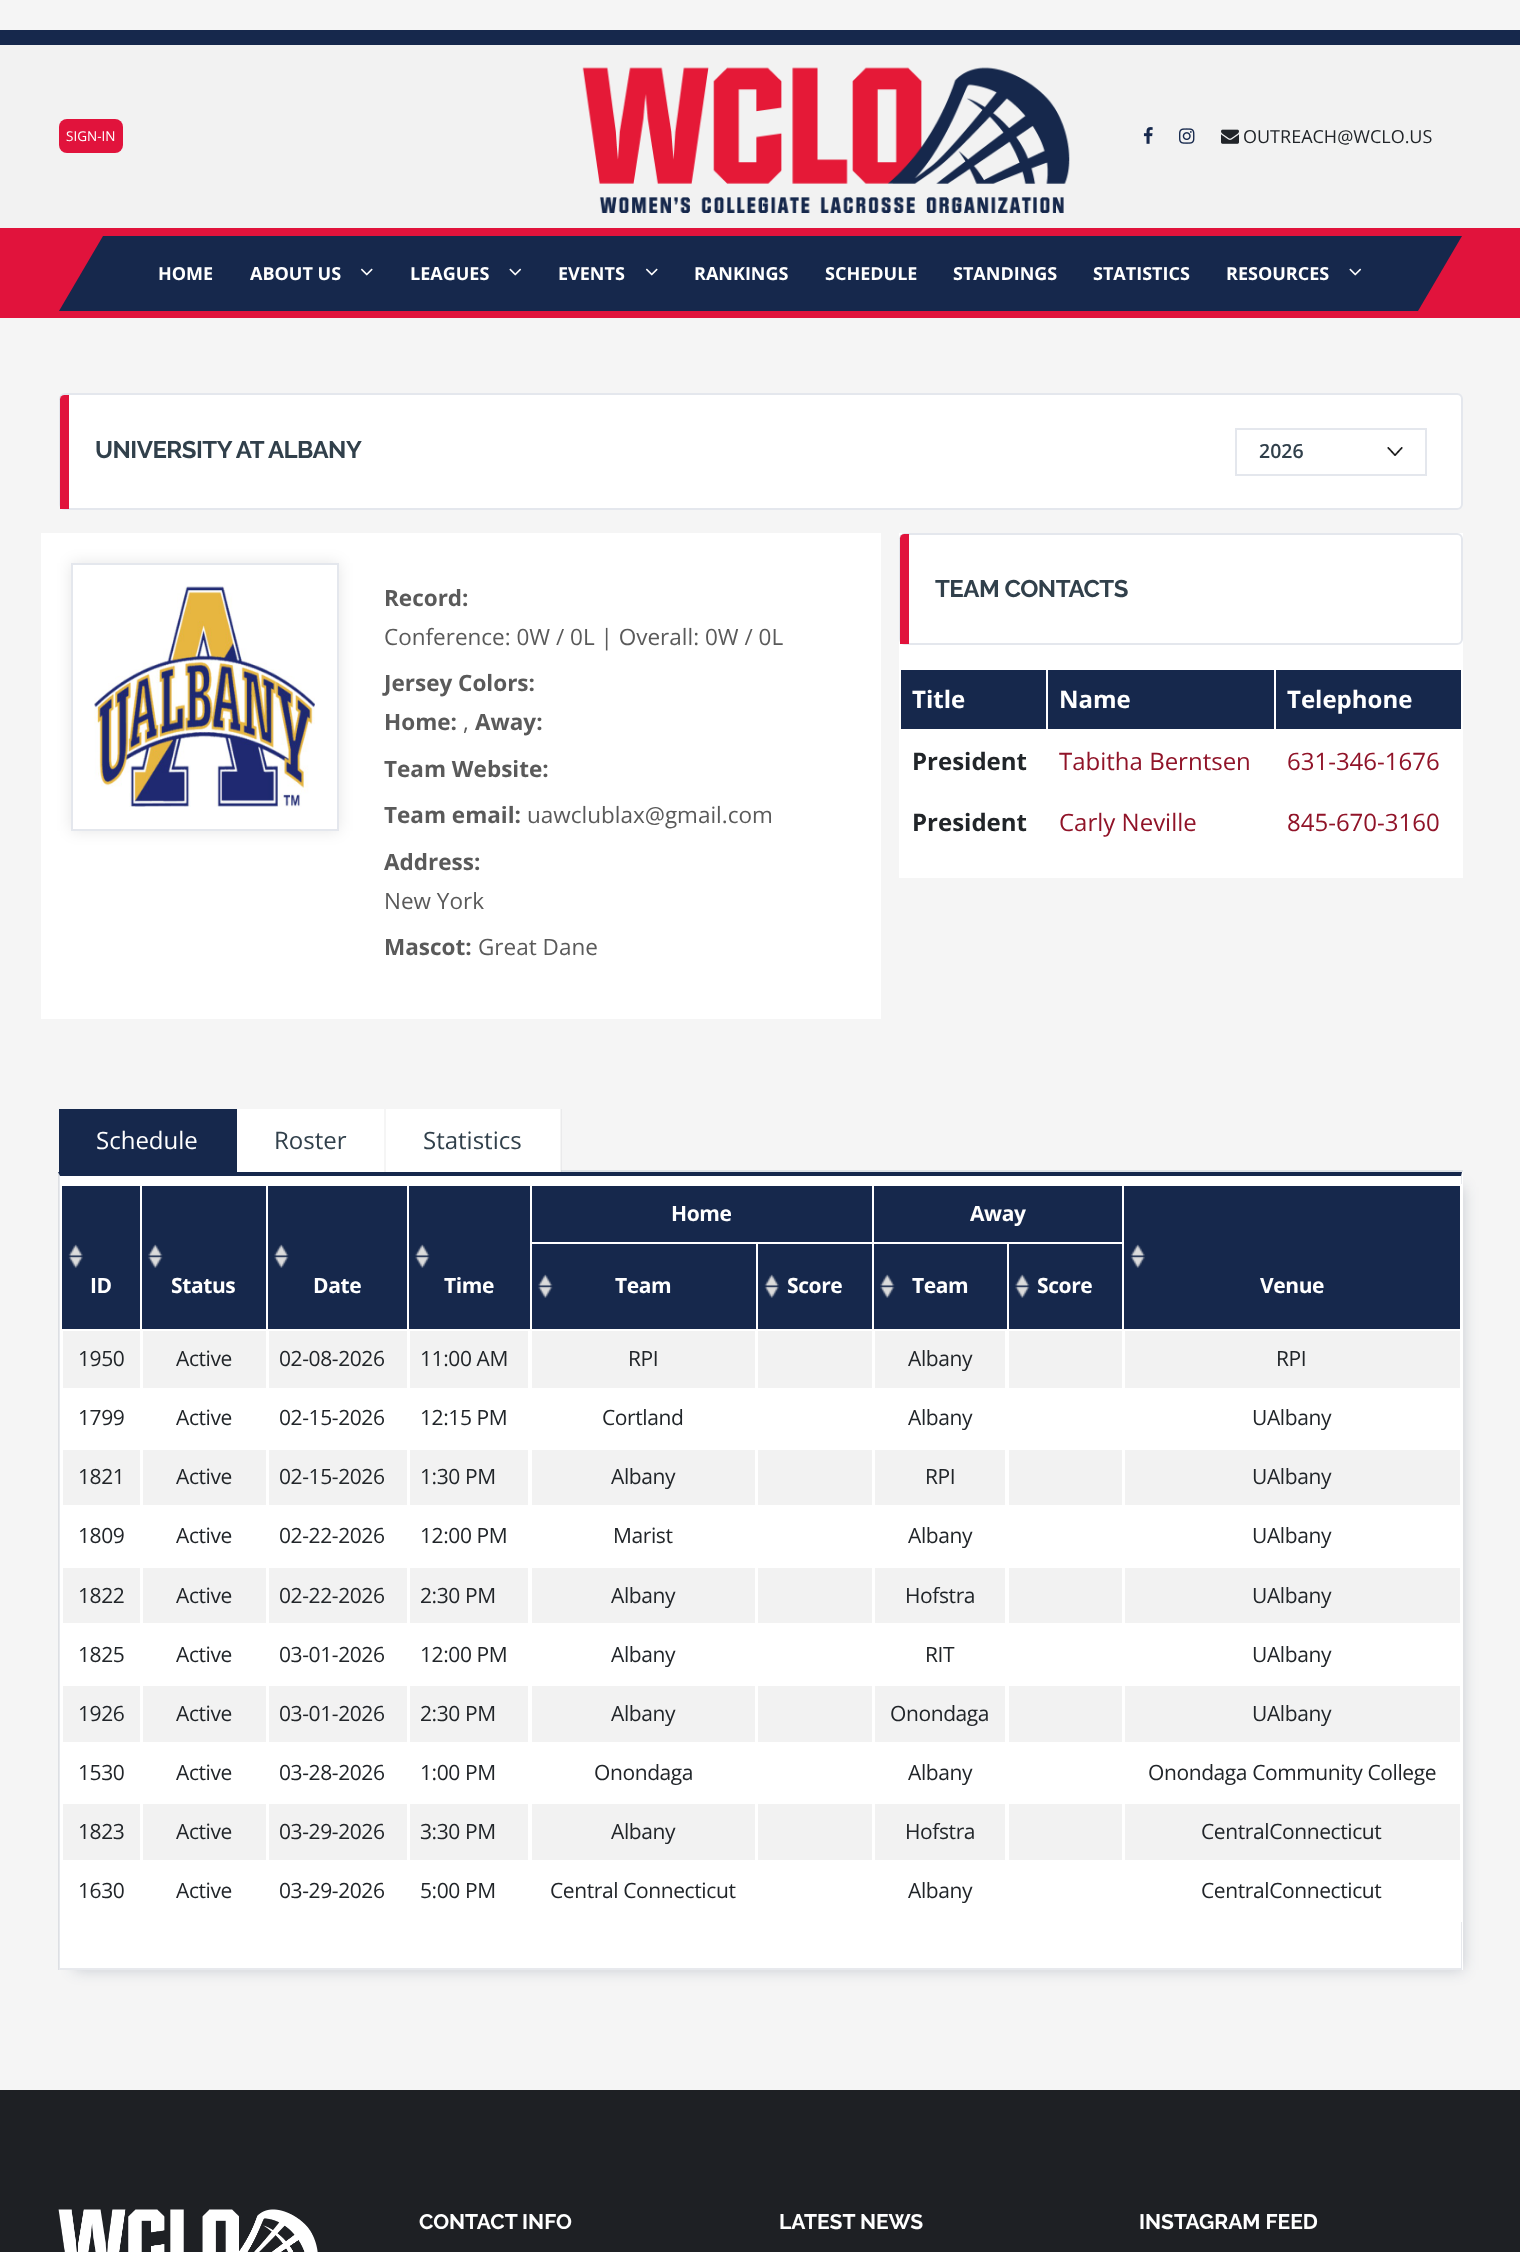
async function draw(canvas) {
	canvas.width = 1520;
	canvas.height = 2252;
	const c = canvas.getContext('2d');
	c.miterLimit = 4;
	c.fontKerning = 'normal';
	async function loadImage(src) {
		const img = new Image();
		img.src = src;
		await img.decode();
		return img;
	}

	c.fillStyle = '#f5f5f5';
	c.fillRect(0, 0, 1520, 2252);
	for (const [x, y, w, h, color] of [
		[561, 1109, 1, 63, '#eaeaeb'],
		[0, 45, 1520, 183, '#f2f2f2'],
		[0, 30, 1520, 15, '#16284c'],
	]) {
		c.fillStyle = color;
		c.fillRect(x, y, w, h);
	}
	c.fillStyle = '#e1133c';
	c.beginPath();
	c.roundRect(59, 119, 64, 34, 8);
	c.fill();
	c.font = '13.5px Open Sans';
	c.fillStyle = '#fff';
	c.fillText('SIGN-IN', 66, 141);
	c.drawImage(await loadImage('img1.png'), 582, 67, 488, 146);
	c.drawImage(await loadImage('img2.png'), 1143, 127, 10, 17);
	c.drawImage(await loadImage('img3.png'), 1179, 128, 16, 16);
	c.drawImage(await loadImage('img4.png'), 1221, 129, 18, 15);
	c.font = '18px Open Sans';
	c.fillStyle = '#212529';
	c.fillText('OUTREACH@WCLO.US', 1243, 143);
	c.fillStyle = '#e1133c';
	c.fillRect(0, 228, 1520, 90);
	c.fillStyle = '#16284c';
	c.beginPath();
	c.moveTo(103, 236);
	c.lineTo(1462, 236);
	c.lineTo(1418, 311);
	c.lineTo(59, 311);
	c.closePath();
	c.fill();
	c.font = 'bold 18px Open Sans';
	c.fillStyle = '#fff';
	c.fillText('HOME', 158, 280);
	c.fillText('ABOUT US', 250, 280);
	c.drawImage(await loadImage('img5.png'), 360, 268, 13, 8);
	c.fillText('LEAGUES', 410, 280);
	c.drawImage(await loadImage('img6.png'), 509, 268, 13, 8);
	c.fillText('EVENTS', 558, 280);
	c.drawImage(await loadImage('img5.png'), 645, 268, 13, 8);
	for (const [text, x, y] of [
		['RANKINGS', 694, 280],
		['SCHEDULE', 825, 280],
		['STANDINGS', 953, 280],
		['STATISTICS', 1093, 280],
		['RESOURCES', 1226, 280],
	]) {
		c.fillText(text, x, y);
	}
	c.drawImage(await loadImage('img6.png'), 1349, 268, 13, 8);
	c.beginPath();
	c.roundRect(60, 394, 1402, 115, 5);
	c.fill();
	c.strokeStyle = '#e4e7ed';
	c.lineWidth = 2;
	c.stroke();
	c.fillStyle = '#e1133c';
	c.beginPath();
	c.roundRect(60, 395, 9, 114, [4.5, 0, 0, 0]);
	c.fill();
	c.letterSpacing = '-0.5px';
	c.font = 'bold 24px Raleway';
	c.fillStyle = '#31404b';
	c.fillText('UNIVERSITY AT ALBANY', 95, 458);
	c.drawImage(await loadImage('img7.png'), 1387, 447, 16, 9);
	c.strokeRect(1236, 429, 190, 46);
	c.letterSpacing = '0px';
	c.font = '600 19.5px Open Sans';
	c.fillText('2026', 1259, 458);
	c.fillStyle = '#fff';
	c.fillRect(41, 533, 840, 486);
	c.save();
	c.beginPath();
	c.moveTo(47, 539);
	c.lineTo(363, 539);
	c.lineTo(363, 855);
	c.lineTo(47, 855);
	c.closePath();
	c.moveTo(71, 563);
	c.lineTo(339, 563);
	c.lineTo(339, 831);
	c.lineTo(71, 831);
	c.closePath();
	c.clip('evenodd');
	c.fillStyle = '#0000001a';
	c.filter = 'blur(7.5px)';
	c.beginPath();
	c.rect(71, 563, 268, 268);
	c.fill();
	c.filter = 'none';
	c.restore();
	c.strokeRect(72, 564, 266, 266);
	c.drawImage(await loadImage('img8.png'), 94, 586, 221, 221);
	c.font = 'bold 22.5px Open Sans';
	c.fillStyle = '#5a5a5a';
	c.fillText('Record:', 384, 606);
	c.font = '22.5px Open Sans';
	c.fillText('Conference: 0W / 0L | Overall: 0W / 0L', 384, 645);
	c.font = 'bold 22.5px Open Sans';
	c.fillText('Jersey Colors:', 384, 691);
	c.fillText('Home:', 384, 730);
	c.font = '22.5px Open Sans';
	c.fillText(',', 463, 730);
	c.font = 'bold 22.5px Open Sans';
	for (const [text, x, y] of [
		['Away:', 475, 730],
		['Team Website:', 384, 777],
		['Team email:', 384, 823],
	]) {
		c.fillText(text, x, y);
	}
	c.font = '22.5px Open Sans';
	c.fillText('uawclublax@gmail.com', 527, 823);
	c.font = 'bold 22.5px Open Sans';
	c.fillText('Address:', 384, 870);
	c.font = '22.5px Open Sans';
	c.fillText('New York', 384, 909);
	c.font = 'bold 22.5px Open Sans';
	c.fillText('Mascot:', 384, 955);
	c.font = '22.5px Open Sans';
	c.fillText('Great Dane', 478, 955);
	c.fillStyle = '#fff';
	c.fillRect(899, 533, 564, 345);
	c.beginPath();
	c.roundRect(900, 534, 562, 110, 5);
	c.stroke();
	c.fillStyle = '#e1133c';
	c.beginPath();
	c.roundRect(900, 534, 9, 110, [4.5, 0, 0, 0]);
	c.fill();
	c.letterSpacing = '-0.5px';
	c.font = 'bold 24px Raleway';
	c.fillStyle = '#31404b';
	c.fillText('TEAM CONTACTS', 935, 597);
	c.fillStyle = '#16284c';
	c.fillRect(901, 670, 560, 59);
	c.letterSpacing = '0px';
	c.font = 'bold 24px Open Sans';
	c.fillStyle = '#fff';
	c.fillText('Title', 912, 708);
	c.fillRect(1046, 668, 2, 63);
	c.fillText('Name', 1059, 708);
	c.fillRect(1274, 668, 2, 63);
	c.fillText('Telephone', 1287, 708);
	c.fillStyle = '#212529';
	c.fillText('President', 912, 770);
	c.font = '24px Open Sans';
	c.fillStyle = '#901328';
	c.fillText('Tabitha Berntsen', 1059, 770);
	c.fillText('631-346-1676', 1287, 770);
	c.font = 'bold 24px Open Sans';
	c.fillStyle = '#212529';
	c.fillText('President', 912, 831);
	c.font = '24px Open Sans';
	c.fillStyle = '#901328';
	c.fillText('Carly Neville', 1059, 831);
	c.fillText('845-670-3160', 1287, 831);
	c.fillStyle = '#dee2e6';
	c.fillRect(562, 1170, 901, 2);
	c.fillStyle = '#d4d8dc';
	c.fillRect(560, 1170, 2, 2);
	c.fillStyle = '#16284c33';
	c.filter = 'blur(7.5px)';
	c.beginPath();
	c.rect(74, 1187, 1389, 783);
	c.fill();
	c.filter = 'none';
	c.fillStyle = '#16284c';
	c.fillRect(59, 1109, 177, 63);
	c.fillStyle = '#16284a';
	c.fillRect(236, 1109, 1, 63);
	c.fillStyle = '#fff';
	c.fillText('Schedule', 96, 1149);
	c.fillRect(237, 1109, 147, 63);
	c.fillStyle = '#31404b';
	c.fillText('Roster', 274, 1149);
	c.fillStyle = '#fff';
	c.fillRect(386, 1109, 174, 63);
	c.fillStyle = '#f4f4f4';
	c.fillRect(560, 1170, 1, 2);
	c.fillStyle = '#31404b';
	c.fillText('Statistics', 423, 1149);
	c.fillStyle = '#fff';
	c.fillRect(59, 1172, 1404, 798);
	c.fillStyle = '#16284c';
	c.beginPath();
	c.moveTo(58, 1172);
	c.lineTo(1462, 1172);
	c.lineTo(1461, 1176);
	c.lineTo(60, 1176);
	c.closePath();
	c.fill();
	c.fillStyle = '#16284c1a';
	c.beginPath();
	c.moveTo(1462, 1172);
	c.lineTo(1462, 1970);
	c.lineTo(1461, 1968);
	c.lineTo(1461, 1176);
	c.closePath();
	c.fill();
	c.beginPath();
	c.moveTo(1462, 1970);
	c.lineTo(58, 1970);
	c.lineTo(60, 1968);
	c.lineTo(1461, 1968);
	c.closePath();
	c.fill();
	c.beginPath();
	c.moveTo(58, 1970);
	c.lineTo(58, 1172);
	c.lineTo(60, 1176);
	c.lineTo(60, 1968);
	c.closePath();
	c.fill();
	c.fillStyle = '#16284c';
	c.fillRect(62, 1186, 1398, 143);
	c.letterSpacing = '-0.4px';
	c.font = 'bold 21px Open Sans';
	c.fillStyle = '#fff';
	c.fillText('Home', 671, 1221);
	for (const [x, y, w, h, color] of [
		[1007, 1242, 117, 2, '#fff'],
		[1007, 1242, 2, 89, '#fff'],
		[872, 1242, 136, 2, '#fff'],
		[872, 1242, 2, 89, '#fff'],
		[756, 1242, 117, 2, '#fff'],
		[872, 1184, 2, 60, '#fff'],
	]) {
		c.fillStyle = color;
		c.fillRect(x, y, w, h);
	}
	c.fillText('Away', 970, 1221);
	c.drawImage(await loadImage('img9.png'), 68, 1244, 15, 24);
	c.fillText('ID', 90, 1293);
	c.drawImage(await loadImage('img10.png'), 148, 1244, 15, 24);
	c.fillRect(140, 1184, 2, 147);
	c.fillText('Status', 171, 1293);
	c.drawImage(await loadImage('img11.png'), 274, 1244, 15, 24);
	c.fillRect(266, 1184, 2, 147);
	c.fillText('Date', 313, 1293);
	c.drawImage(await loadImage('img12.png'), 415, 1244, 15, 24);
	c.fillRect(407, 1184, 2, 147);
	c.fillText('Time', 444, 1293);
	c.drawImage(await loadImage('img13.png'), 1130, 1244, 15, 24);
	c.fillRect(1122, 1184, 2, 147);
	c.fillText('Venue', 1260, 1293);
	c.drawImage(await loadImage('img11.png'), 538, 1274, 15, 24);
	for (const [x, y, w, h, color] of [
		[756, 1242, 2, 89, '#fff'],
		[530, 1242, 228, 2, '#fff'],
		[530, 1184, 2, 147, '#fff'],
	]) {
		c.fillStyle = color;
		c.fillRect(x, y, w, h);
	}
	c.fillText('Team', 615, 1293);
	c.drawImage(await loadImage('img9.png'), 764, 1274, 15, 24);
	c.fillText('Score', 787, 1293);
	c.drawImage(await loadImage('img10.png'), 880, 1274, 15, 24);
	c.fillText('Team', 912, 1293);
	c.drawImage(await loadImage('img10.png'), 1015, 1274, 15, 24);
	c.fillText('Score', 1037, 1293);
	c.fillStyle = '#f2f2f2';
	c.fillRect(63, 1331, 77, 57);
	c.font = '21px Open Sans';
	c.fillStyle = '#212529';
	c.fillText('1950', 78, 1366);
	c.fillStyle = '#f2f2f2';
	c.fillRect(143, 1331, 123, 57);
	c.fillStyle = '#212529';
	c.fillText('Active', 176, 1366);
	c.fillStyle = '#f2f2f2';
	c.fillRect(269, 1331, 138, 57);
	c.fillStyle = '#212529';
	c.fillText('02-08-2026', 279, 1366);
	c.fillStyle = '#f2f2f2';
	c.fillRect(410, 1331, 118, 57);
	c.fillStyle = '#212529';
	c.fillText('11:00 AM', 420, 1366);
	c.fillStyle = '#f2f2f2';
	c.fillRect(532, 1331, 223, 57);
	c.fillStyle = '#212529';
	c.fillText('RPI', 628, 1366);
	c.fillStyle = '#f2f2f2';
	c.fillRect(758, 1331, 114, 57);
	c.fillRect(875, 1331, 130, 57);
	c.fillStyle = '#212529';
	c.fillText('Albany', 908, 1366);
	c.fillStyle = '#f2f2f2';
	c.fillRect(1009, 1331, 113, 57);
	c.fillRect(1125, 1331, 335, 57);
	c.fillStyle = '#212529';
	for (const [text, x, y] of [
		['RPI', 1276, 1366],
		['1799', 78, 1425],
		['Active', 176, 1425],
		['02-15-2026', 279, 1425],
		['12:15 PM', 420, 1425],
		['Cortland', 602, 1425],
		['Albany', 908, 1425],
		['UAlbany', 1252, 1425],
	]) {
		c.fillText(text, x, y);
	}
	c.fillStyle = '#f2f2f2';
	c.fillRect(63, 1450, 77, 55);
	c.fillStyle = '#212529';
	c.fillText('1821', 78, 1484);
	c.fillStyle = '#f2f2f2';
	c.fillRect(143, 1450, 123, 55);
	c.fillStyle = '#212529';
	c.fillText('Active', 176, 1484);
	c.fillStyle = '#f2f2f2';
	c.fillRect(269, 1450, 138, 55);
	c.fillStyle = '#212529';
	c.fillText('02-15-2026', 279, 1484);
	c.fillStyle = '#f2f2f2';
	c.fillRect(410, 1450, 118, 55);
	c.fillStyle = '#212529';
	c.fillText('1:30 PM', 420, 1484);
	c.fillStyle = '#f2f2f2';
	c.fillRect(532, 1450, 223, 55);
	c.fillStyle = '#212529';
	c.fillText('Albany', 611, 1484);
	c.fillStyle = '#f2f2f2';
	c.fillRect(758, 1450, 114, 55);
	c.fillRect(875, 1450, 130, 55);
	c.fillStyle = '#212529';
	c.fillText('RPI', 925, 1484);
	c.fillStyle = '#f2f2f2';
	c.fillRect(1009, 1450, 113, 55);
	c.fillRect(1125, 1450, 335, 55);
	c.fillStyle = '#212529';
	for (const [text, x, y] of [
		['UAlbany', 1252, 1484],
		['1809', 78, 1543],
		['Active', 176, 1543],
		['02-22-2026', 279, 1543],
		['12:00 PM', 420, 1543],
		['Marist', 613, 1543],
		['Albany', 908, 1543],
		['UAlbany', 1252, 1543],
	]) {
		c.fillText(text, x, y);
	}
	c.fillStyle = '#f2f2f2';
	c.fillRect(63, 1568, 77, 55);
	c.fillStyle = '#212529';
	c.fillText('1822', 78, 1603);
	c.fillStyle = '#f2f2f2';
	c.fillRect(143, 1568, 123, 55);
	c.fillStyle = '#212529';
	c.fillText('Active', 176, 1603);
	c.fillStyle = '#f2f2f2';
	c.fillRect(269, 1568, 138, 55);
	c.fillStyle = '#212529';
	c.fillText('02-22-2026', 279, 1603);
	c.fillStyle = '#f2f2f2';
	c.fillRect(410, 1568, 118, 55);
	c.fillStyle = '#212529';
	c.fillText('2:30 PM', 420, 1603);
	c.fillStyle = '#f2f2f2';
	c.fillRect(532, 1568, 223, 55);
	c.fillStyle = '#212529';
	c.fillText('Albany', 611, 1603);
	c.fillStyle = '#f2f2f2';
	c.fillRect(758, 1568, 114, 55);
	c.fillRect(875, 1568, 130, 55);
	c.fillStyle = '#212529';
	c.fillText('Hofstra', 905, 1603);
	c.fillStyle = '#f2f2f2';
	c.fillRect(1009, 1568, 113, 55);
	c.fillRect(1125, 1568, 335, 55);
	c.fillStyle = '#212529';
	for (const [text, x, y] of [
		['UAlbany', 1252, 1603],
		['1825', 78, 1662],
		['Active', 176, 1662],
		['03-01-2026', 279, 1662],
		['12:00 PM', 420, 1662],
		['Albany', 611, 1662],
		['RIT', 925, 1662],
		['UAlbany', 1252, 1662],
	]) {
		c.fillText(text, x, y);
	}
	c.fillStyle = '#f2f2f2';
	c.fillRect(63, 1686, 77, 56);
	c.fillStyle = '#212529';
	c.fillText('1926', 78, 1721);
	c.fillStyle = '#f2f2f2';
	c.fillRect(143, 1686, 123, 56);
	c.fillStyle = '#212529';
	c.fillText('Active', 176, 1721);
	c.fillStyle = '#f2f2f2';
	c.fillRect(269, 1686, 138, 56);
	c.fillStyle = '#212529';
	c.fillText('03-01-2026', 279, 1721);
	c.fillStyle = '#f2f2f2';
	c.fillRect(410, 1686, 118, 56);
	c.fillStyle = '#212529';
	c.fillText('2:30 PM', 420, 1721);
	c.fillStyle = '#f2f2f2';
	c.fillRect(532, 1686, 223, 56);
	c.fillStyle = '#212529';
	c.fillText('Albany', 611, 1721);
	c.fillStyle = '#f2f2f2';
	c.fillRect(758, 1686, 114, 56);
	c.fillRect(875, 1686, 130, 56);
	c.fillStyle = '#212529';
	c.fillText('Onondaga', 890, 1721);
	c.fillStyle = '#f2f2f2';
	c.fillRect(1009, 1686, 113, 56);
	c.fillRect(1125, 1686, 335, 56);
	c.fillStyle = '#212529';
	for (const [text, x, y] of [
		['UAlbany', 1252, 1721],
		['1530', 78, 1780],
		['Active', 176, 1780],
		['03-28-2026', 279, 1780],
		['1:00 PM', 420, 1780],
		['Onondaga', 594, 1780],
		['Albany', 908, 1780],
		['Onondaga Community College', 1148, 1780],
	]) {
		c.fillText(text, x, y);
	}
	c.fillStyle = '#f2f2f2';
	c.fillRect(63, 1804, 77, 56);
	c.fillStyle = '#212529';
	c.fillText('1823', 78, 1839);
	c.fillStyle = '#f2f2f2';
	c.fillRect(143, 1804, 123, 56);
	c.fillStyle = '#212529';
	c.fillText('Active', 176, 1839);
	c.fillStyle = '#f2f2f2';
	c.fillRect(269, 1804, 138, 56);
	c.fillStyle = '#212529';
	c.fillText('03-29-2026', 279, 1839);
	c.fillStyle = '#f2f2f2';
	c.fillRect(410, 1804, 118, 56);
	c.fillStyle = '#212529';
	c.fillText('3:30 PM', 420, 1839);
	c.fillStyle = '#f2f2f2';
	c.fillRect(532, 1804, 223, 56);
	c.fillStyle = '#212529';
	c.fillText('Albany', 611, 1839);
	c.fillStyle = '#f2f2f2';
	c.fillRect(758, 1804, 114, 56);
	c.fillRect(875, 1804, 130, 56);
	c.fillStyle = '#212529';
	c.fillText('Hofstra', 905, 1839);
	c.fillStyle = '#f2f2f2';
	c.fillRect(1009, 1804, 113, 56);
	c.fillRect(1125, 1804, 335, 56);
	c.fillStyle = '#212529';
	for (const [text, x, y] of [
		['CentralConnecticut', 1201, 1839],
		['1630', 78, 1898],
		['Active', 176, 1898],
		['03-29-2026', 279, 1898],
		['5:00 PM', 420, 1898],
		['Central Connecticut', 550, 1898],
		['Albany', 908, 1898],
	]) {
		c.fillText(text, x, y);
	}
	c.fillStyle = '#fff';
	c.fillRect(1461, 1184, 1, 738);
	c.fillStyle = '#212529';
	c.fillText('CentralConnecticut', 1201, 1898);
	c.fillStyle = '#1e2024';
	c.fillRect(0, 2090, 1520, 162);
	c.drawImage(await loadImage('img14.png'), 58, 2209, 260, 43);
	c.letterSpacing = '0px';
	c.font = 'bold 21px Raleway';
	c.fillStyle = '#fff';
	for (const [text, x, y] of [
		['CONTACT INFO', 419, 2229],
		['LATEST NEWS', 779, 2229],
		['INSTAGRAM FEED', 1139, 2229],
	]) {
		c.fillText(text, x, y);
	}
}

draw(document.querySelector('canvas'));
